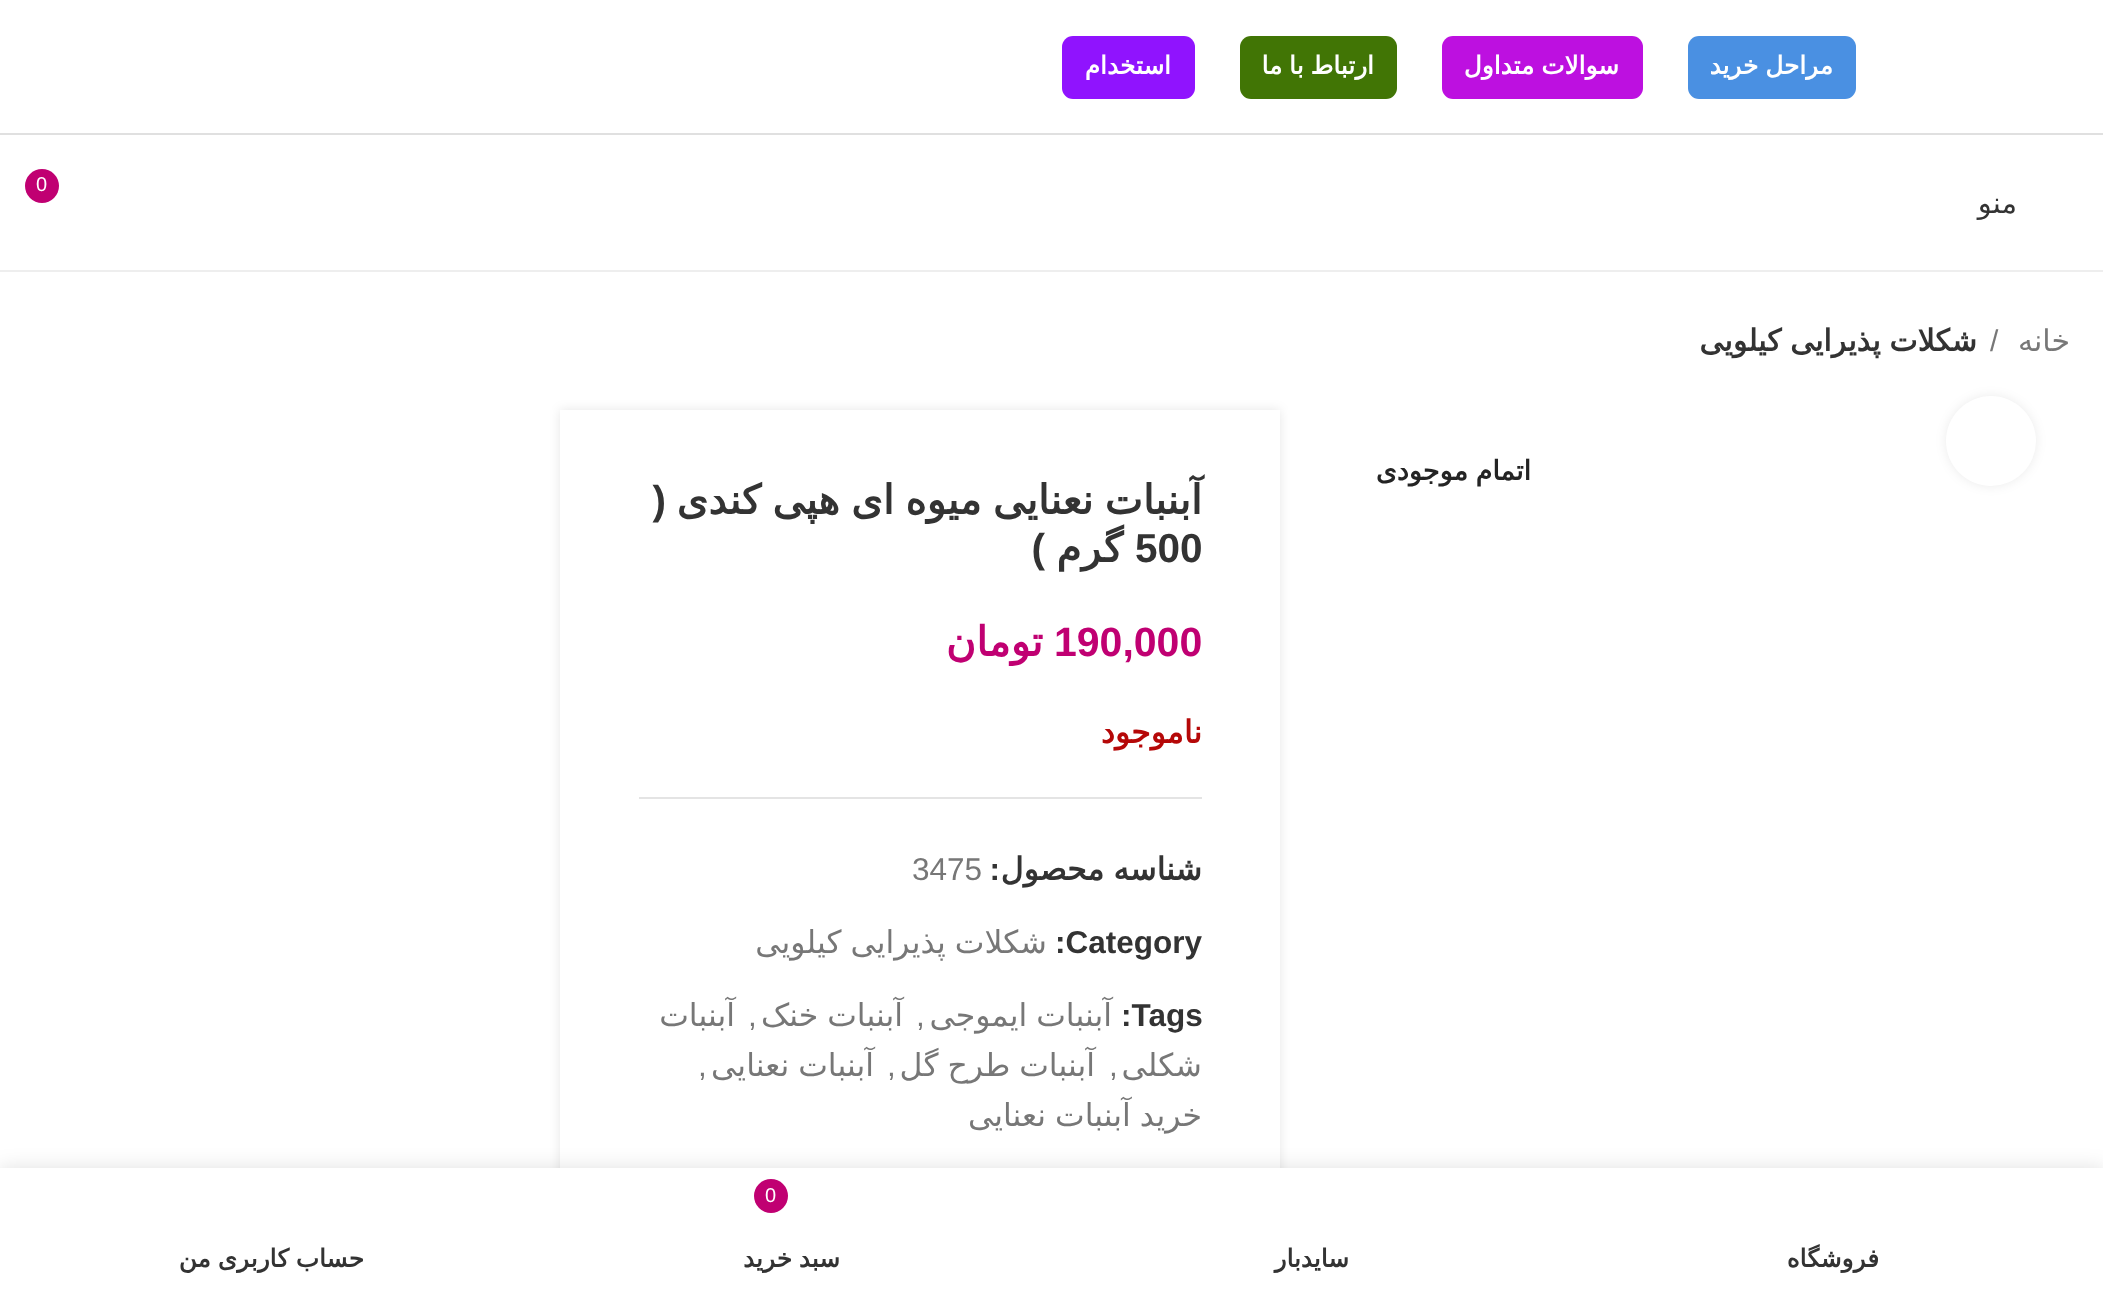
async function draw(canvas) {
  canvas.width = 2103;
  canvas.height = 1291;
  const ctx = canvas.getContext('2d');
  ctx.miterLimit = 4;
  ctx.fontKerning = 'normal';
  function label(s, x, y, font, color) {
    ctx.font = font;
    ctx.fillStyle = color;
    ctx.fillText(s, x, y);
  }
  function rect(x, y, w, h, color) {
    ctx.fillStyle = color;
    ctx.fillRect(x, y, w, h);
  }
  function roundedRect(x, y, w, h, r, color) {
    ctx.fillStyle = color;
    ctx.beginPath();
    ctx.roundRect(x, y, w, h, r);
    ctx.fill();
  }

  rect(0, 0, 2103, 1291, '#fff');
  rect(0, 133, 2103, 2, '#e0e0e0');
  roundedRect(1688, 36, 168, 63, 11, '#4a90e2');
  ctx.wordSpacing = '-1px';
  ctx.direction = 'rtl';
  label('مراحل خرید', 1833, 74, 'bold 24.75px DejaVu Sans', '#fff');
  roundedRect(1442, 36, 201, 63, 11, '#bd10e0');
  label('سوالات متداول', 1619, 74, 'bold 24.75px DejaVu Sans', '#fff');
  roundedRect(1240, 36, 157, 63, 11, '#417505');
  label('ارتباط با ما', 1374, 74, 'bold 24.75px DejaVu Sans', '#fff');
  roundedRect(1062, 36, 133, 63, 11, '#9013fe');
  ctx.wordSpacing = '0px';
  label('استخدام', 1171, 74, 'bold 24.75px DejaVu Sans', '#fff');
  rect(0, 270, 2103, 2, '#eee');
  ctx.fillStyle = '#c00072';
  ctx.beginPath();
  ctx.arc(42, 186, 17, 0, 2 * Math.PI);
  ctx.fill();
  ctx.direction = 'ltr';
  label('0', 36, 191, '20px Liberation Sans', '#fff');
  ctx.direction = 'rtl';
  label('منو', 2017, 213, '29px DejaVu Sans', '#333');
  label('خانه', 2070, 351, '30px DejaVu Sans', '#777');
  ctx.direction = 'ltr';
  label('/', 1990, 351, '30px Liberation Sans', '#777');
  ctx.wordSpacing = '-1px';
  ctx.direction = 'rtl';
  label('شکلات پذیرایی کیلویی', 1977, 351, 'bold 30px DejaVu Sans', '#333');
  ctx.fillStyle = '#00000014';
  ctx.filter = 'blur(5.5px)';
  ctx.beginPath();
  ctx.roundRect(1946, 396, 90, 90, 45);
  ctx.fill();
  ctx.filter = 'none';
  ctx.fillStyle = '#fff';
  ctx.beginPath();
  ctx.arc(1991, 441, 45, 0, 2 * Math.PI);
  ctx.fill();
  label('اتمام موجودی', 1531, 480, 'bold 27px DejaVu Sans', '#242424');
  ctx.fillStyle = '#0000001a';
  ctx.filter = 'blur(5.5px)';
  ctx.beginPath();
  ctx.rect(560, 410, 720, 846);
  ctx.fill();
  ctx.filter = 'none';
  rect(560, 410, 720, 758, '#fff');
  ctx.wordSpacing = '-1.5px';
  label('آبنبات نعنایی میوه ای هپی کندی', 1202, 514, 'bold 40.5px DejaVu Sans', '#333');
  ctx.wordSpacing = '0px';
  label('(', 666, 514, 'bold 40.5px Liberation Sans', '#333');
  ctx.direction = 'ltr';
  label('500', 1135, 562, 'bold 40.5px Liberation Sans', '#333');
  ctx.direction = 'rtl';
  label('گرم', 1123, 562, 'bold 40.5px DejaVu Sans', '#333');
  label(')', 1045, 562, 'bold 40.5px Liberation Sans', '#333');
  ctx.direction = 'ltr';
  label('190,000', 1054, 656, 'bold 41px Liberation Sans', '#c00072');
  ctx.direction = 'rtl';
  label('تومان', 1043, 656, 'bold 41px DejaVu Sans', '#c00072');
  label('ناموجود', 1202, 743, 'bold 31.5px DejaVu Sans', '#b50808');
  rect(639, 797, 563, 2, '#e4e4e4');
  ctx.wordSpacing = '-1px';
  label('شناسه محصول', 1202, 880, 'bold 31.5px DejaVu Sans', '#333');
  ctx.wordSpacing = '0px';
  label(':', 1000, 880, 'bold 31.5px Liberation Sans', '#333');
  ctx.direction = 'ltr';
  label('3475', 912, 880, '31.5px Liberation Sans', '#777');
  label(':Category', 1055, 953, 'bold 31.5px Liberation Sans', '#333');
  ctx.wordSpacing = '-1px';
  ctx.direction = 'rtl';
  label('شکلات پذیرایی کیلویی', 1047, 953, '31.5px DejaVu Sans', '#777');
  ctx.wordSpacing = '0px';
  ctx.direction = 'ltr';
  label(':Tags', 1121, 1026, 'bold 31.5px Liberation Sans', '#333');
  ctx.wordSpacing = '-1px';
  ctx.direction = 'rtl';
  label('آبنبات ایموجی', 1112, 1026, '31.5px DejaVu Sans', '#777');
  ctx.wordSpacing = '0px';
  ctx.direction = 'ltr';
  label(',', 916, 1026, '31.5px Liberation Sans', '#777');
  ctx.wordSpacing = '-1px';
  ctx.direction = 'rtl';
  label('آبنبات خنک', 903, 1026, '31.5px DejaVu Sans', '#777');
  ctx.wordSpacing = '0px';
  ctx.direction = 'ltr';
  label(',', 748, 1026, '31.5px Liberation Sans', '#777');
  ctx.direction = 'rtl';
  label('آبنبات', 735, 1026, '31.5px DejaVu Sans', '#777');
  label('شکلی', 1202, 1076, '31.5px DejaVu Sans', '#777');
  ctx.direction = 'ltr';
  label(',', 1109, 1076, '31.5px Liberation Sans', '#777');
  ctx.wordSpacing = '-1px';
  ctx.direction = 'rtl';
  label('آبنبات طرح گل', 1095, 1076, '31.5px DejaVu Sans', '#777');
  ctx.wordSpacing = '0px';
  ctx.direction = 'ltr';
  label(',', 887, 1076, '31.5px Liberation Sans', '#777');
  ctx.wordSpacing = '-1px';
  ctx.direction = 'rtl';
  label('آبنبات نعنایی', 874, 1076, '31.5px DejaVu Sans', '#777');
  ctx.wordSpacing = '0px';
  ctx.direction = 'ltr';
  label(',', 698, 1076, '31.5px Liberation Sans', '#777');
  ctx.wordSpacing = '-1px';
  ctx.direction = 'rtl';
  label('خرید آبنبات نعنایی', 1202, 1126, '31.5px DejaVu Sans', '#777');
  ctx.fillStyle = '#0000001f';
  ctx.filter = 'blur(10px)';
  ctx.beginPath();
  ctx.rect(0, 1168, 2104, 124);
  ctx.fill();
  ctx.filter = 'none';
  rect(0, 1168, 2103, 123, '#fff');
  ctx.wordSpacing = '0px';
  label('فروشگاه', 1879, 1267, 'bold 24.75px DejaVu Sans', '#333');
  label('سایدبار', 1349, 1267, 'bold 24.75px DejaVu Sans', '#333');
  ctx.fillStyle = '#c00072';
  ctx.beginPath();
  ctx.arc(771, 1196, 17, 0, 2 * Math.PI);
  ctx.fill();
  ctx.direction = 'ltr';
  label('0', 765, 1202, '20px Liberation Sans', '#fff');
  ctx.wordSpacing = '-1px';
  ctx.direction = 'rtl';
  label('سبد خرید', 840, 1267, 'bold 24.75px DejaVu Sans', '#333');
  label('حساب کاربری من', 364, 1267, 'bold 24.75px DejaVu Sans', '#333');
}

draw(document.querySelector('canvas'));
